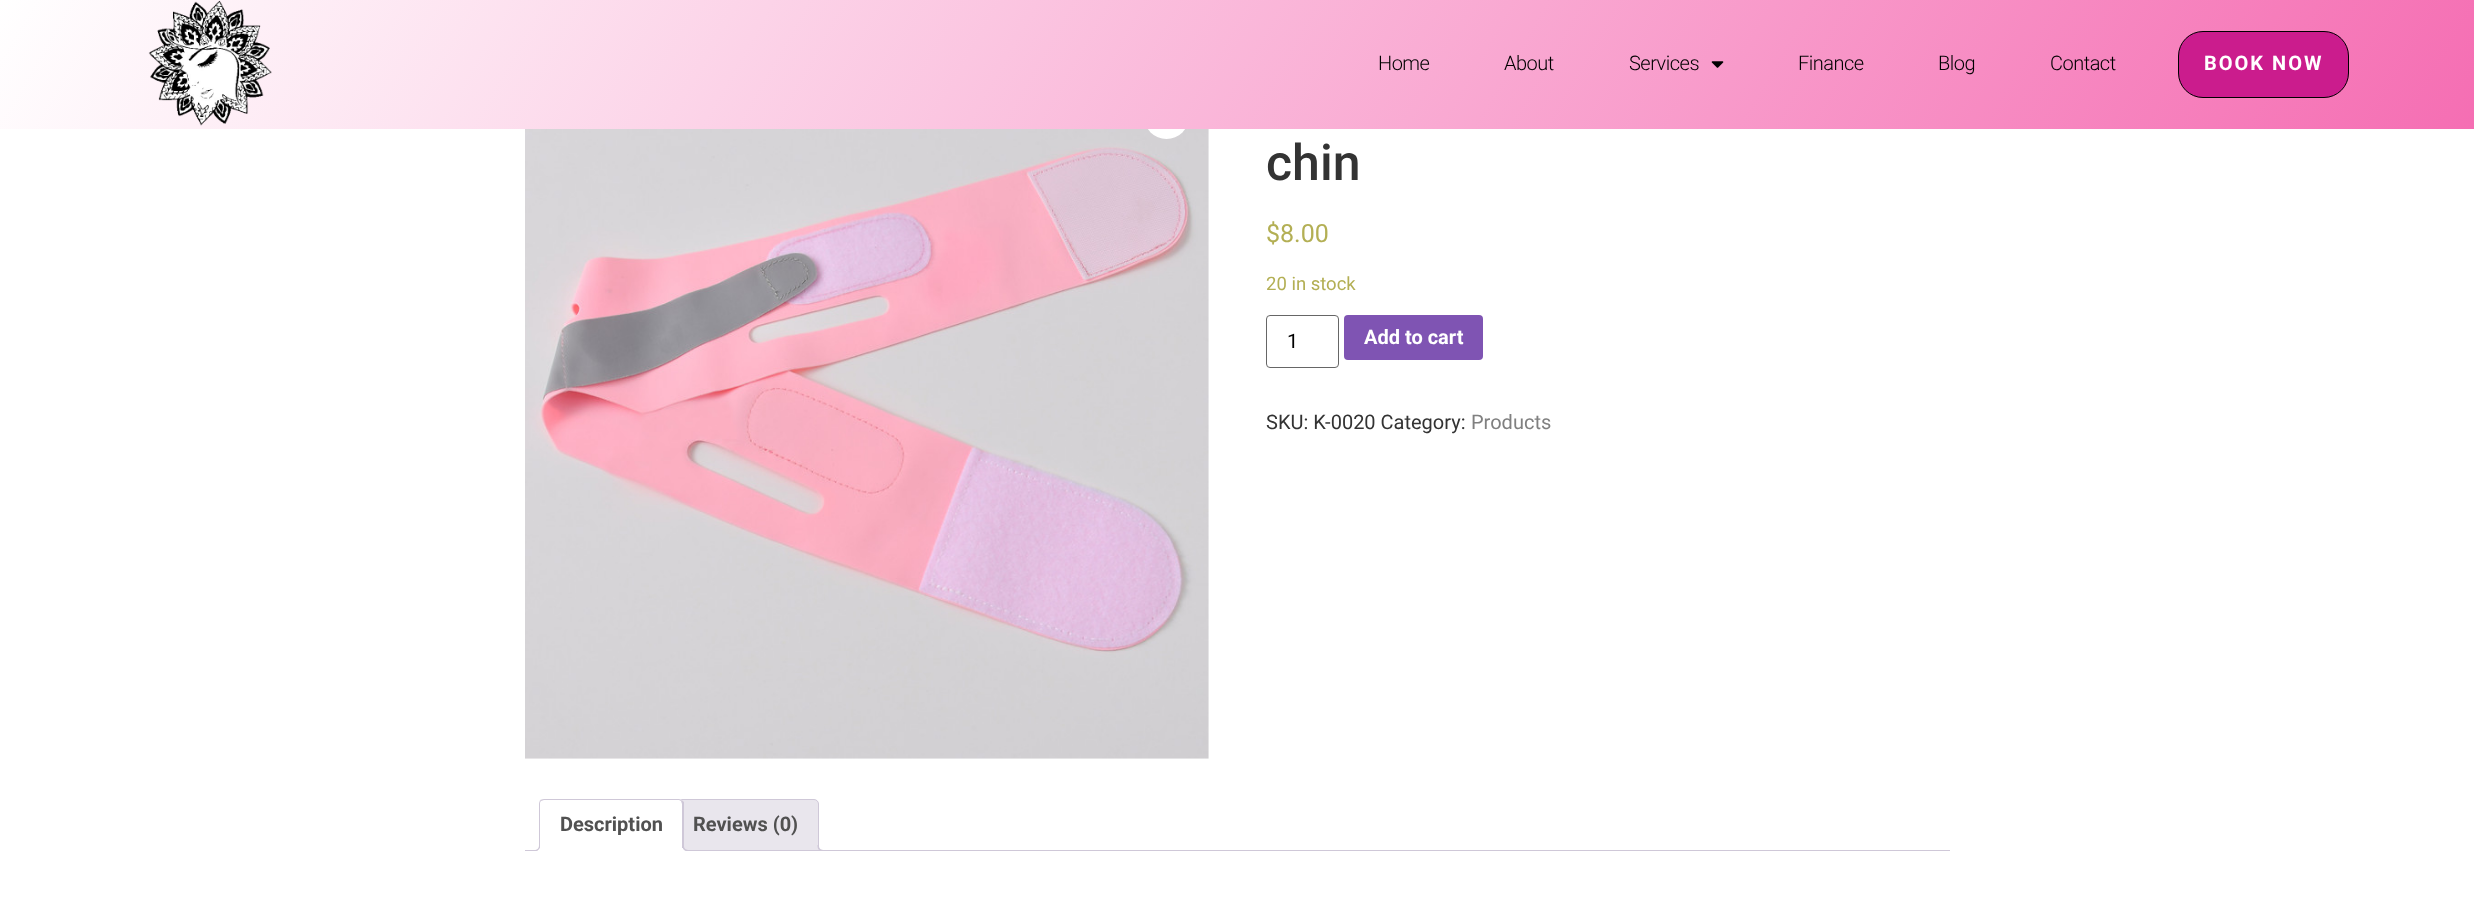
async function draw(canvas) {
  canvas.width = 2474;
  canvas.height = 905;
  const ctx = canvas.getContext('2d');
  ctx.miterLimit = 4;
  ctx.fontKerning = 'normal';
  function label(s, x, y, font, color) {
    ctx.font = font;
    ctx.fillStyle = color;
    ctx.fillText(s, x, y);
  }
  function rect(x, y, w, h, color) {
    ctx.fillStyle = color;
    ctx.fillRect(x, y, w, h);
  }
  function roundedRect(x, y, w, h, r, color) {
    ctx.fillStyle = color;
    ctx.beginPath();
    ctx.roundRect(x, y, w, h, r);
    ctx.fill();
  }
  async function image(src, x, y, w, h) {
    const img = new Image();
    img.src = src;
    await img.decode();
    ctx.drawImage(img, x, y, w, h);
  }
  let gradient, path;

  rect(0, 0, 2474, 905, '#fff');
  await image('assets/img3.png', 525, 129, 684, 630);
  ctx.beginPath();
  ctx.arc(1166.5, 116.5, 22.5, 0, 2 * Math.PI);
  ctx.fill();
  gradient = ctx.createLinearGradient(281, -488, 2194, 616);
  gradient.addColorStop(0, '#fff');
  gradient.addColorStop(1, '#f56eb3');
  ctx.fillStyle = gradient;
  ctx.fillRect(0, 0, 2474, 129);
  await image('assets/img1.png', 148, 0, 124, 126);
  ctx.letterSpacing = '-0.5px';
  label('Home', 1378, 70, '300 20px Roboto', '#000');
  label('About', 1504, 70, '300 20px Roboto', '#000');
  label('Services', 1629, 70, '300 20px Roboto', '#000');
  await image('assets/img2.png', 1711, 61, 13, 7);
  label('Finance', 1798, 70, '300 20px Roboto', '#000');
  label('Blog', 1938, 70, '300 20px Roboto', '#000');
  label('Contact', 2050, 70, '300 20px Roboto', '#000');
  ctx.fillStyle = '#cb1c8d';
  ctx.beginPath();
  ctx.roundRect(2178.5, 31.5, 170, 66, 24.5);
  ctx.fill();
  ctx.strokeStyle = '#000';
  ctx.stroke();
  ctx.letterSpacing = '2px';
  label('BOOK NOW', 2204, 70, 'bold 20px Roboto', '#fff');
  ctx.letterSpacing = '0px';
  label('chin', 1266, 180, '500 50px Roboto', '#333');
  label('$8.00', 1266, 242, '25px Roboto', '#b3af54');
  label('20 in stock', 1266, 290, '18.5px Roboto', '#b3af54');
  ctx.beginPath();
  ctx.roundRect(1266.5, 315.5, 72, 52, 3.5);
  ctx.strokeStyle = '#666';
  ctx.stroke();
  label('1', 1287, 348, '20px Roboto', '#000');
  roundedRect(1344, 315, 139, 45, 4, '#7f54b3');
  label('Add to cart', 1364, 344, 'bold 20px Roboto', '#fff');
  label('SKU: K-0020 Category:', 1266, 429, '20px Roboto', '#333');
  label('Products', 1471, 429, '20px Roboto', '#808080');
  ctx.fillStyle = '#e9e6ed';
  ctx.beginPath();
  ctx.roundRect(671.5, 799.5, 147, 51, [4.5, 4.5, 0, 0]);
  ctx.fill();
  ctx.strokeStyle = '#cfc8d8';
  ctx.stroke();
  ctx.save();
  ctx.beginPath();
  ctx.rect(525, 799, 1425, 52);
  ctx.clip();
  path = new Path2D('M815 848C815 852 817 854 821 854V851C819.5 850.5 818.5 849.5 818 848Z');
  ctx.fill(path);
  ctx.restore();
  ctx.fillStyle = '#cfc8d8';
  path = new Path2D('M817.5 845H824V851C820.5 851 817.5 850 817.5 846ZM819 845H824V850C821.5 850 819 849 819 846Z');
  ctx.fill(path, 'evenodd');
  rect(525, 850, 1425, 1, '#cfc8d8');
  ctx.fillStyle = '#fff';
  ctx.beginPath();
  ctx.roundRect(539, 799, 145, 52, [5, 5, 0, 0]);
  ctx.fill();
  ctx.fillStyle = '#cfc8d8';
  path = new Path2D('M544 799C542 799 541 800 540 800L541 801L544 800H679L681 801L682 800L679 799Z');
  ctx.fill(path);
  path = new Path2D('M682 800L684 802V851L682 850V804L681 801Z');
  ctx.fill(path);
  ctx.fillStyle = '#fff';
  path = new Path2D('M684 851H539L540 850H682Z');
  ctx.fill(path);
  ctx.fillStyle = '#cfc8d8';
  path = new Path2D('M540 800C540 801 539 802 539 804V851L540 850V804C540 803 540 802 541 801Z');
  ctx.fill(path);
  label('Description', 560, 831, 'bold 20px Roboto', '#515151');
  ctx.save();
  ctx.beginPath();
  ctx.rect(525, 799, 1425, 52);
  ctx.clip();
  ctx.fillStyle = '#fff';
  path = new Path2D('M536 851V854C540.5 854 543 853 543 848H539.5C539 849.5 537.5 851 536 851Z');
  ctx.fill(path);
  ctx.restore();
  ctx.fillStyle = '#cfc8d8';
  path = new Path2D('M534 845H540C540 849.5 538 851 534 851ZM534 845H539C539 848.5 537.5 850 534 850Z');
  ctx.fill(path, 'evenodd');
  ctx.save();
  ctx.beginPath();
  ctx.rect(525, 799, 1425, 52);
  ctx.clip();
  ctx.fillStyle = '#fff';
  path = new Path2D('M680 848C680 852 682 854 686 854V851C684.5 850.5 683.5 849.5 683 848Z');
  ctx.fill(path);
  ctx.restore();
  path = new Path2D('M682.5 845H689V851C685.5 851 682.5 850 682.5 846ZM684 845H689V850C686.5 850 684 849 684 846Z');
  ctx.fill(path, 'evenodd');
  label('Reviews (0)', 693, 831, 'bold 20px Roboto', '#515151');
}

draw(document.querySelector('canvas'));
